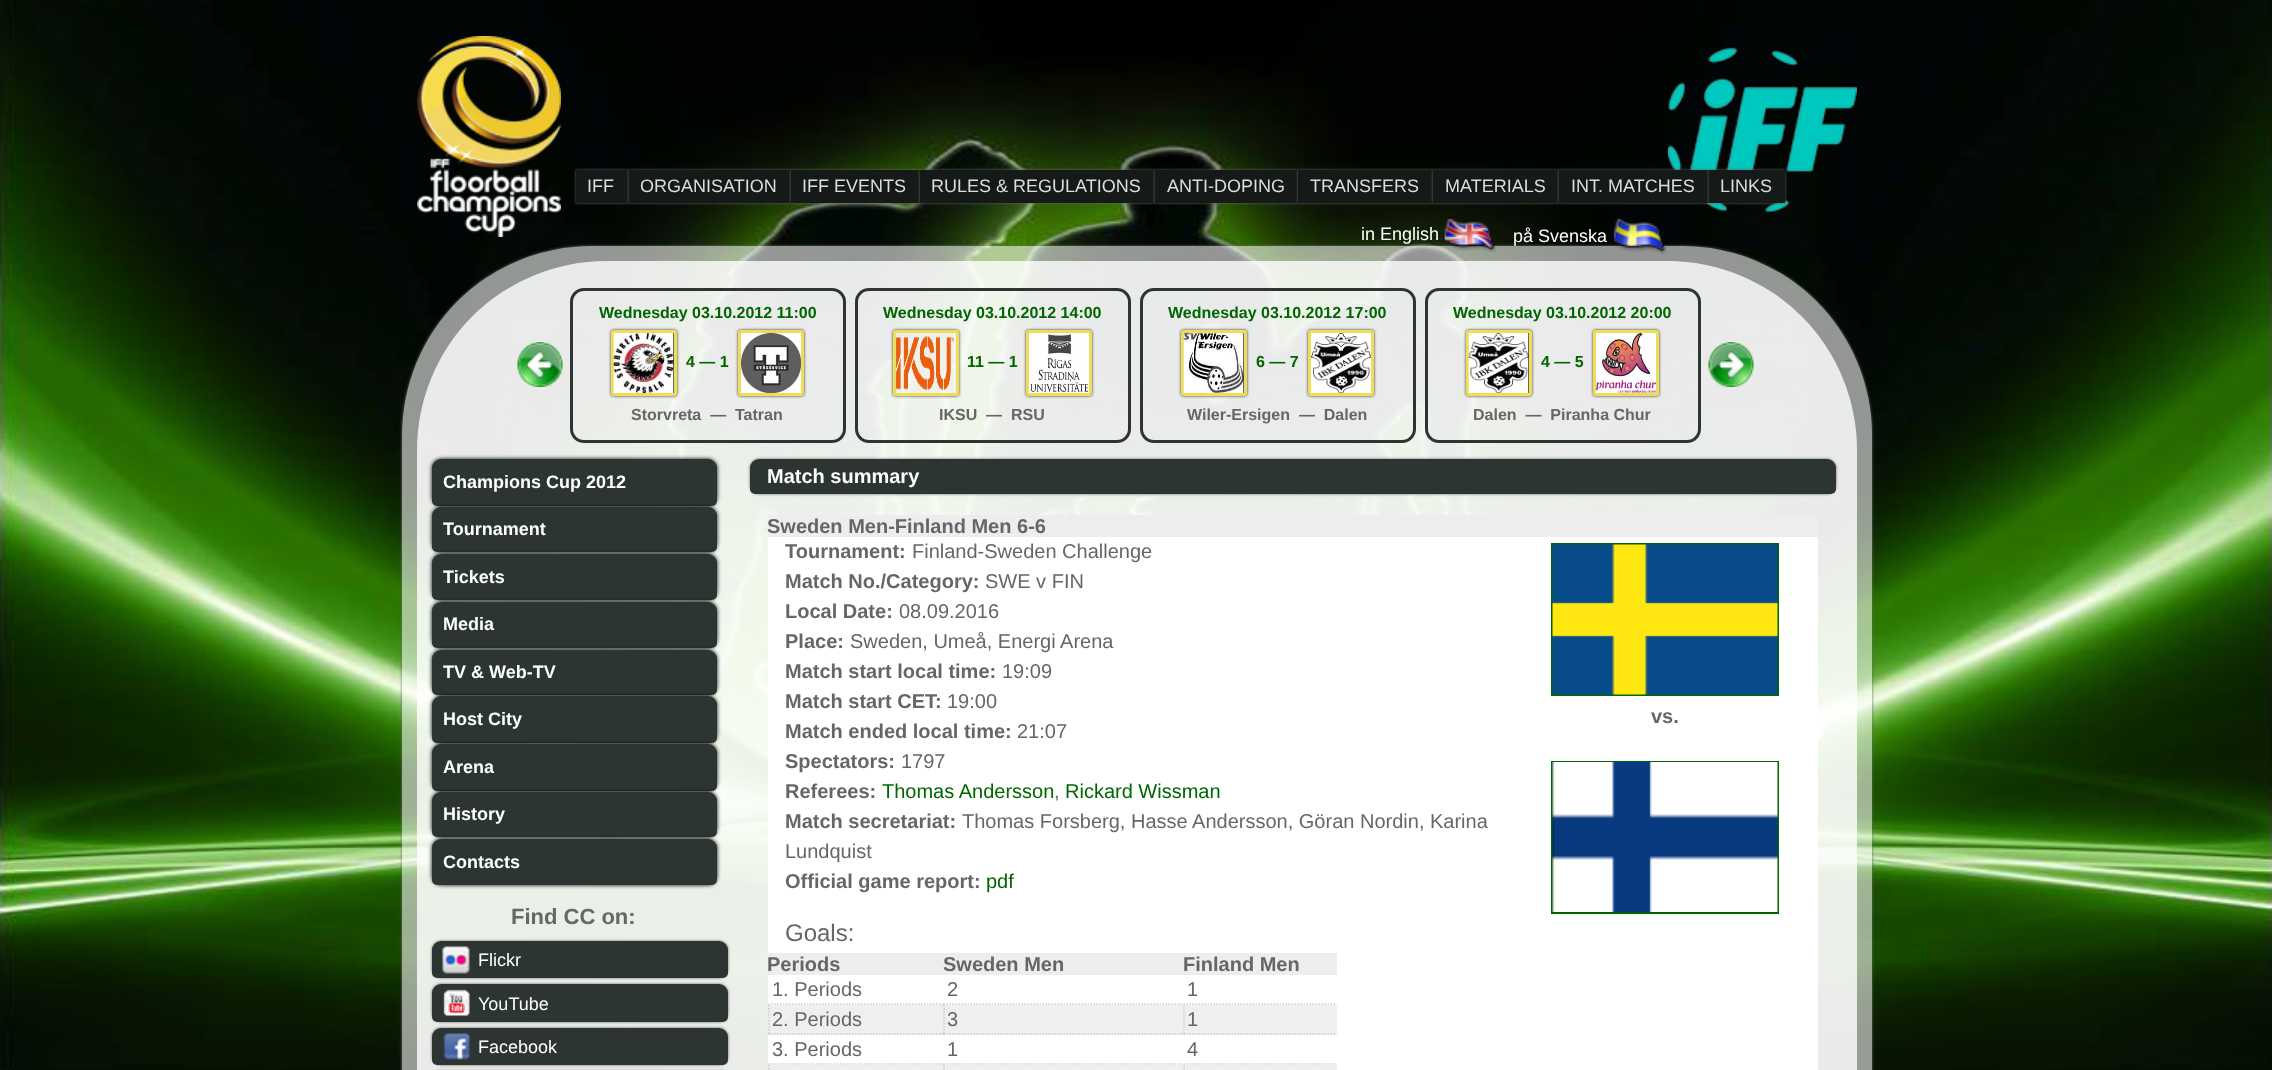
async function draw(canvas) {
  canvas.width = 2272;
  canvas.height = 1070;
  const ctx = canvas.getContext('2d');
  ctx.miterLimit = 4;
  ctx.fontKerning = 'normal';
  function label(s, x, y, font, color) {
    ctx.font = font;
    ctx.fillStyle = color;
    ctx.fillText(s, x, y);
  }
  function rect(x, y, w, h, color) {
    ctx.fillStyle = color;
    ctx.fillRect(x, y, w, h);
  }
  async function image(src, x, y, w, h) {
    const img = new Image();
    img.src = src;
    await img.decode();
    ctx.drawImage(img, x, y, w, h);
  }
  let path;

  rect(0, 0, 2272, 1070, '#fff');
  await image('assets/img1.png', 0, 0, 2272, 1070);
  await image('assets/img2.png', 417, 36, 144, 201);
  await image('assets/img3.png', 1668, 47, 189, 165);
  ctx.fillStyle = '#666';
  ctx.filter = 'blur(1.5px)';
  ctx.beginPath();
  ctx.rect(576, 170, 53, 33);
  ctx.fill();
  ctx.filter = 'none';
  rect(576, 170, 53, 33, '#151a18');
  label('IFF', 587, 192, '18px Liberation Sans', '#ddd');
  ctx.fillStyle = '#666';
  ctx.filter = 'blur(1.5px)';
  ctx.beginPath();
  ctx.rect(629, 170, 162, 33);
  ctx.fill();
  ctx.filter = 'none';
  rect(629, 170, 162, 33, '#151a18');
  label('ORGANISATION', 640, 192, '18px Liberation Sans', '#ddd');
  ctx.fillStyle = '#666';
  ctx.filter = 'blur(1.5px)';
  ctx.beginPath();
  ctx.rect(791, 170, 129, 33);
  ctx.fill();
  ctx.filter = 'none';
  rect(791, 170, 129, 33, '#151a18');
  label('IFF EVENTS', 802, 192, '18px Liberation Sans', '#ddd');
  ctx.fillStyle = '#666';
  ctx.filter = 'blur(1.5px)';
  ctx.beginPath();
  ctx.rect(920, 170, 235, 33);
  ctx.fill();
  ctx.filter = 'none';
  rect(920, 170, 235, 33, '#151a18');
  label('RULES & REGULATIONS', 931, 192, '18px Liberation Sans', '#ddd');
  ctx.fillStyle = '#666';
  ctx.filter = 'blur(1.5px)';
  ctx.beginPath();
  ctx.rect(1155, 170, 143, 33);
  ctx.fill();
  ctx.filter = 'none';
  rect(1155, 170, 143, 33, '#151a18');
  label('ANTI-DOPING', 1167, 192, '18px Liberation Sans', '#ddd');
  ctx.fillStyle = '#666';
  ctx.filter = 'blur(1.5px)';
  ctx.beginPath();
  ctx.rect(1298, 170, 135, 33);
  ctx.fill();
  ctx.filter = 'none';
  rect(1298, 170, 135, 33, '#151a18');
  label('TRANSFERS', 1310, 192, '18px Liberation Sans', '#ddd');
  ctx.fillStyle = '#666';
  ctx.filter = 'blur(1.5px)';
  ctx.beginPath();
  ctx.rect(1433, 170, 126, 33);
  ctx.fill();
  ctx.filter = 'none';
  rect(1433, 170, 126, 33, '#151a18');
  label('MATERIALS', 1445, 192, '18px Liberation Sans', '#ddd');
  ctx.fillStyle = '#666';
  ctx.filter = 'blur(1.5px)';
  ctx.beginPath();
  ctx.rect(1559, 170, 150, 33);
  ctx.fill();
  ctx.filter = 'none';
  rect(1559, 170, 150, 33, '#151a18');
  label('INT. MATCHES', 1571, 192, '18px Liberation Sans', '#ddd');
  ctx.fillStyle = '#666';
  ctx.filter = 'blur(1.5px)';
  ctx.beginPath();
  ctx.rect(1709, 170, 76, 33);
  ctx.fill();
  ctx.filter = 'none';
  rect(1709, 170, 76, 33, '#151a18');
  label('LINKS', 1720, 192, '18px Liberation Sans', '#ddd');
  ctx.save();
  path = new Path2D('M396 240H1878V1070H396ZM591 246H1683C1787.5 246 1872 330.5 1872 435V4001C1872 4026 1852 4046 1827 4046H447C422 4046 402 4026 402 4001V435C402 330.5 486.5 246 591 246Z');
  ctx.clip(path, 'evenodd');
  ctx.fillStyle = '#666';
  ctx.filter = 'blur(1.5px)';
  ctx.beginPath();
  ctx.roundRect(402, 246, 1470, 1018, 189);
  ctx.fill();
  ctx.filter = 'none';
  ctx.restore();
  label('in English', 1361, 240, '18px Liberation Sans', '#fff');
  await image('assets/img6.png', 402, 246, 1470, 824);
  await image('assets/img4.png', 1443, 217, 53, 36);
  label('på Svenska', 1513, 242, '18px Liberation Sans', '#fff');
  await image('assets/img5.png', 1613, 218, 54, 37);
  await image('assets/img7.png', 417, 261, 1440, 809);
  await image('assets/img8.png', 517, 342, 46, 45);
  ctx.beginPath();
  ctx.roundRect(571.5, 289.5, 273, 152, 12.5);
  ctx.strokeStyle = '#2d3532';
  ctx.lineWidth = 3;
  ctx.stroke();
  label('Wednesday 03.10.2012 11:00', 599, 318, 'bold 16px Liberation Sans', '#060');
  ctx.fillStyle = '#333';
  ctx.filter = 'blur(1.5px)';
  ctx.beginPath();
  ctx.roundRect(611, 330, 66, 66, 3);
  ctx.fill();
  ctx.filter = 'none';
  ctx.filter = 'blur(1.5px)';
  ctx.beginPath();
  ctx.roundRect(738, 330, 66, 66, 3);
  ctx.fill();
  ctx.filter = 'none';
  ctx.beginPath();
  ctx.roundRect(612.5, 331.5, 63, 63, 1.5);
  ctx.strokeStyle = '#eede57';
  ctx.stroke();
  ctx.beginPath();
  ctx.roundRect(739.5, 331.5, 63, 63, 1.5);
  ctx.stroke();
  await image('assets/img9.png', 613, 333, 61, 60);
  label('4 — 1', 686, 367, 'bold 16px Liberation Sans', '#060');
  await image('assets/img10.png', 741, 333, 60, 60);
  label('Storvreta  —  Tatran', 631, 420, 'bold 16px Liberation Sans', '#666');
  ctx.beginPath();
  ctx.roundRect(856.5, 289.5, 273, 152, 12.5);
  ctx.strokeStyle = '#2d3532';
  ctx.stroke();
  label('Wednesday 03.10.2012 14:00', 883, 318, 'bold 16px Liberation Sans', '#060');
  ctx.save();
  path = new Path2D('M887 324H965V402H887ZM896 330H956C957.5 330 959 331.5 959 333V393C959 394.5 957.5 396 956 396H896C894.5 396 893 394.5 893 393V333C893 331.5 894.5 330 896 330Z');
  ctx.clip(path, 'evenodd');
  ctx.fillStyle = '#333';
  ctx.filter = 'blur(1.5px)';
  ctx.beginPath();
  ctx.roundRect(893, 330, 66, 66, 3);
  ctx.fill();
  ctx.filter = 'none';
  ctx.restore();
  ctx.fillStyle = '#333';
  ctx.filter = 'blur(1.5px)';
  ctx.beginPath();
  ctx.roundRect(1026, 330, 66, 66, 3);
  ctx.fill();
  ctx.filter = 'none';
  ctx.beginPath();
  ctx.roundRect(894.5, 331.5, 63, 63, 1.5);
  ctx.strokeStyle = '#eede57';
  ctx.stroke();
  ctx.beginPath();
  ctx.roundRect(1027.5, 331.5, 63, 63, 1.5);
  ctx.stroke();
  await image('assets/img11.png', 896, 336, 58, 54);
  label('11 — 1', 967, 367, 'bold 16px Liberation Sans', '#060');
  await image('assets/img12.png', 1029, 333, 60, 60);
  label('IKSU  —  RSU', 939, 420, 'bold 16px Liberation Sans', '#666');
  ctx.beginPath();
  ctx.roundRect(1141.5, 289.5, 273, 152, 12.5);
  ctx.strokeStyle = '#2d3532';
  ctx.stroke();
  label('Wednesday 03.10.2012 17:00', 1168, 318, 'bold 16px Liberation Sans', '#060');
  ctx.fillStyle = '#333';
  ctx.filter = 'blur(1.5px)';
  ctx.beginPath();
  ctx.roundRect(1181, 330, 66, 66, 3);
  ctx.fill();
  ctx.filter = 'none';
  ctx.filter = 'blur(1.5px)';
  ctx.beginPath();
  ctx.roundRect(1308, 330, 66, 66, 3);
  ctx.fill();
  ctx.filter = 'none';
  ctx.beginPath();
  ctx.roundRect(1182.5, 331.5, 63, 63, 1.5);
  ctx.strokeStyle = '#eede57';
  ctx.stroke();
  ctx.beginPath();
  ctx.roundRect(1309.5, 331.5, 63, 63, 1.5);
  ctx.stroke();
  await image('assets/img13.png', 1183, 333, 61, 60);
  label('6 — 7', 1256, 367, 'bold 16px Liberation Sans', '#060');
  await image('assets/img14.png', 1311, 333, 60, 60);
  label('Wiler-Ersigen  —  Dalen', 1187, 420, 'bold 16px Liberation Sans', '#666');
  ctx.beginPath();
  ctx.roundRect(1426.5, 289.5, 273, 152, 12.5);
  ctx.strokeStyle = '#2d3532';
  ctx.stroke();
  label('Wednesday 03.10.2012 20:00', 1453, 318, 'bold 16px Liberation Sans', '#060');
  ctx.fillStyle = '#333';
  ctx.filter = 'blur(1.5px)';
  ctx.beginPath();
  ctx.roundRect(1466, 330, 66, 66, 3);
  ctx.fill();
  ctx.filter = 'none';
  ctx.filter = 'blur(1.5px)';
  ctx.beginPath();
  ctx.roundRect(1593, 330, 66, 66, 3);
  ctx.fill();
  ctx.filter = 'none';
  ctx.beginPath();
  ctx.roundRect(1467.5, 331.5, 63, 63, 1.5);
  ctx.strokeStyle = '#eede57';
  ctx.stroke();
  ctx.beginPath();
  ctx.roundRect(1594.5, 331.5, 63, 63, 1.5);
  ctx.stroke();
  await image('assets/img15.png', 1468, 333, 61, 60);
  label('4 — 5', 1541, 367, 'bold 16px Liberation Sans', '#060');
  await image('assets/img16.png', 1596, 333, 60, 60);
  label('Dalen  —  Piranha Chur', 1473, 420, 'bold 16px Liberation Sans', '#666');
  await image('assets/img17.png', 1708, 342, 46, 45);
  ctx.fillStyle = '#000';
  ctx.filter = 'blur(2px)';
  ctx.beginPath();
  ctx.roundRect(432, 459, 285, 47, 9);
  ctx.fill();
  ctx.filter = 'none';
  ctx.fillStyle = '#2d3532';
  ctx.beginPath();
  ctx.roundRect(432, 459, 285, 47, [9, 9, 5, 5]);
  ctx.fill();
  label('Champions Cup 2012', 443, 488, 'bold 18px Liberation Sans', '#fff');
  ctx.fillStyle = '#000';
  ctx.filter = 'blur(2px)';
  ctx.beginPath();
  ctx.roundRect(432, 507, 285, 45, 9);
  ctx.fill();
  ctx.filter = 'none';
  ctx.fillStyle = '#2d3532';
  ctx.beginPath();
  ctx.roundRect(432, 507, 285, 45, [9, 9, 5, 5]);
  ctx.fill();
  label('Tournament', 443, 535, 'bold 18px Liberation Sans', '#fff');
  ctx.fillStyle = '#000';
  ctx.filter = 'blur(2px)';
  ctx.beginPath();
  ctx.roundRect(432, 554, 285, 46, 9);
  ctx.fill();
  ctx.filter = 'none';
  ctx.fillStyle = '#2d3532';
  ctx.beginPath();
  ctx.roundRect(432, 554, 285, 46, [9, 9, 5, 5]);
  ctx.fill();
  label('Tickets', 443, 583, 'bold 18px Liberation Sans', '#fff');
  ctx.fillStyle = '#000';
  ctx.filter = 'blur(2px)';
  ctx.beginPath();
  ctx.roundRect(432, 602, 285, 46, 9);
  ctx.fill();
  ctx.filter = 'none';
  ctx.fillStyle = '#2d3532';
  ctx.beginPath();
  ctx.roundRect(432, 602, 285, 46, [9, 9, 5, 5]);
  ctx.fill();
  label('Media', 443, 630, 'bold 18px Liberation Sans', '#fff');
  ctx.fillStyle = '#000';
  ctx.filter = 'blur(2px)';
  ctx.beginPath();
  ctx.roundRect(432, 650, 285, 45, 9);
  ctx.fill();
  ctx.filter = 'none';
  ctx.fillStyle = '#2d3532';
  ctx.beginPath();
  ctx.roundRect(432, 650, 285, 45, [9, 9, 5, 5]);
  ctx.fill();
  label('TV & Web-TV', 443, 678, 'bold 18px Liberation Sans', '#fff');
  ctx.fillStyle = '#000';
  ctx.filter = 'blur(2px)';
  ctx.beginPath();
  ctx.roundRect(432, 696, 285, 47, 9);
  ctx.fill();
  ctx.filter = 'none';
  ctx.fillStyle = '#2d3532';
  ctx.beginPath();
  ctx.roundRect(432, 696, 285, 47, [9, 9, 5, 5]);
  ctx.fill();
  label('Host City', 443, 725, 'bold 18px Liberation Sans', '#fff');
  ctx.fillStyle = '#000';
  ctx.filter = 'blur(2px)';
  ctx.beginPath();
  ctx.roundRect(432, 744, 285, 47, 9);
  ctx.fill();
  ctx.filter = 'none';
  ctx.fillStyle = '#2d3532';
  ctx.beginPath();
  ctx.roundRect(432, 744, 285, 47, [9, 9, 5, 5]);
  ctx.fill();
  label('Arena', 443, 773, 'bold 18px Liberation Sans', '#fff');
  ctx.fillStyle = '#000';
  ctx.filter = 'blur(2px)';
  ctx.beginPath();
  ctx.roundRect(432, 792, 285, 45, 9);
  ctx.fill();
  ctx.filter = 'none';
  ctx.fillStyle = '#2d3532';
  ctx.beginPath();
  ctx.roundRect(432, 792, 285, 45, [9, 9, 5, 5]);
  ctx.fill();
  label('History', 443, 820, 'bold 18px Liberation Sans', '#fff');
  ctx.fillStyle = '#000';
  ctx.filter = 'blur(2px)';
  ctx.beginPath();
  ctx.roundRect(432, 839, 285, 46, 9);
  ctx.fill();
  ctx.filter = 'none';
  ctx.fillStyle = '#2d3532';
  ctx.beginPath();
  ctx.roundRect(432, 839, 285, 46, [9, 9, 5, 5]);
  ctx.fill();
  label('Contacts', 443, 868, 'bold 18px Liberation Sans', '#fff');
  label('Find CC on:', 511, 924, 'bold 22px Liberation Sans', '#666');
  ctx.filter = 'blur(1.5px)';
  ctx.beginPath();
  ctx.roundRect(432, 941, 296, 37, 9);
  ctx.fill();
  ctx.filter = 'none';
  ctx.fillStyle = '#2d3532';
  ctx.beginPath();
  ctx.roundRect(432, 941, 296, 37, [9, 9, 5, 5]);
  ctx.fill();
  await image('assets/img18.png', 442, 946, 28, 28);
  label('Flickr', 478, 966, '18px Liberation Sans', '#fff');
  ctx.fillStyle = '#666';
  ctx.filter = 'blur(1.5px)';
  ctx.beginPath();
  ctx.roundRect(432, 984, 296, 38, 9);
  ctx.fill();
  ctx.filter = 'none';
  ctx.fillStyle = '#2d3532';
  ctx.beginPath();
  ctx.roundRect(432, 984, 296, 38, [9, 9, 5, 5]);
  ctx.fill();
  await image('assets/img19.png', 443, 989, 27, 27);
  label('YouTube', 478, 1010, '18px Liberation Sans', '#fff');
  ctx.fillStyle = '#666';
  ctx.filter = 'blur(1.5px)';
  ctx.beginPath();
  ctx.roundRect(432, 1028, 296, 37, 9);
  ctx.fill();
  ctx.filter = 'none';
  ctx.fillStyle = '#2d3532';
  ctx.beginPath();
  ctx.roundRect(432, 1028, 296, 37, [9, 9, 5, 5]);
  ctx.fill();
  await image('assets/img20.png', 443, 1033, 27, 27);
  label('Facebook', 478, 1053, '18px Liberation Sans', '#fff');
  ctx.fillStyle = '#666';
  ctx.filter = 'blur(1.5px)';
  ctx.beginPath();
  ctx.roundRect(432, 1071, 296, 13, 9);
  ctx.fill();
  ctx.filter = 'none';
  ctx.filter = 'blur(1.5px)';
  ctx.beginPath();
  ctx.roundRect(750, 459, 1086, 35, 9);
  ctx.fill();
  ctx.filter = 'none';
  ctx.fillStyle = '#2d3532';
  ctx.beginPath();
  ctx.roundRect(750, 459, 1086, 35, [9, 9, 5, 5]);
  ctx.fill();
  label('Match summary', 767, 483, 'bold 20px Liberation Sans', '#fff');
  rect(768, 515, 1050, 22, '#ededed');
  label('Sweden Men-Finland Men 6-6', 767, 533, 'bold 20px Liberation Sans', '#666');
  rect(768, 537, 1050, 533, '#fff');
  label('Tournament:', 785, 558, 'bold 20px Liberation Sans', '#666');
  label('Finland-Sweden Challenge', 912, 558, '20px Liberation Sans', '#666');
  label('Match No./Category:', 785, 588, 'bold 20px Liberation Sans', '#666');
  label('SWE v FIN', 985, 588, '20px Liberation Sans', '#666');
  label('Local Date:', 785, 618, 'bold 20px Liberation Sans', '#666');
  label('08.09.2016', 899, 618, '20px Liberation Sans', '#666');
  label('Place:', 785, 648, 'bold 20px Liberation Sans', '#666');
  label('Sweden, Umeå, Energi Arena', 850, 648, '20px Liberation Sans', '#666');
  label('Match start local time:', 785, 678, 'bold 20px Liberation Sans', '#666');
  label('19:09', 1002, 678, '20px Liberation Sans', '#666');
  label('Match start CET:', 785, 708, 'bold 20px Liberation Sans', '#666');
  label('19:00', 947, 708, '20px Liberation Sans', '#666');
  label('Match ended local time:', 785, 738, 'bold 20px Liberation Sans', '#666');
  label('21:07', 1017, 738, '20px Liberation Sans', '#666');
  label('Spectators:', 785, 768, 'bold 20px Liberation Sans', '#666');
  label('1797', 901, 768, '20px Liberation Sans', '#666');
  label('Referees:', 785, 798, 'bold 20px Liberation Sans', '#666');
  label('Thomas Andersson', 882, 798, '20px Liberation Sans', '#060');
  label(',', 1054, 798, '20px Liberation Sans', '#666');
  label('Rickard Wissman', 1065, 798, '20px Liberation Sans', '#060');
  label('Match secretariat:', 785, 828, 'bold 20px Liberation Sans', '#666');
  label('Thomas Forsberg, Hasse Andersson, Göran Nordin, Karina', 962, 828, '20px Liberation Sans', '#666');
  label('Lundquist', 785, 858, '20px Liberation Sans', '#666');
  label('Official game report:', 785, 888, 'bold 20px Liberation Sans', '#666');
  label('pdf', 986, 888, '20px Liberation Sans', '#060');
  label('Goals:', 785, 941, '24px Liberation Sans', '#666');
  rect(768, 953, 569, 22, '#ededed');
  label('Periods', 767, 971, 'bold 20px Liberation Sans', '#666');
  label('Sweden Men', 943, 971, 'bold 20px Liberation Sans', '#666');
  label('Finland Men', 1183, 971, 'bold 20px Liberation Sans', '#666');
  path = new Path2D('M768 1004H943.5');
  ctx.strokeStyle = '#ccc';
  ctx.lineWidth = 1.5;
  ctx.setLineDash([1.5, 1.5]);
  ctx.stroke(path);
  path = new Path2D('M769 975V1005');
  ctx.strokeStyle = '#fff';
  ctx.stroke(path);
  label('1. Periods', 772, 996, '20px Liberation Sans', '#666');
  path = new Path2D('M943.5 1004H1183.5');
  ctx.strokeStyle = '#ccc';
  ctx.stroke(path);
  path = new Path2D('M944 975V1005');
  ctx.strokeStyle = '#fff';
  ctx.stroke(path);
  label('2', 947, 996, '20px Liberation Sans', '#666');
  path = new Path2D('M1183.5 1004H1336.5');
  ctx.strokeStyle = '#ccc';
  ctx.stroke(path);
  path = new Path2D('M1184 975V1005');
  ctx.strokeStyle = '#fff';
  ctx.stroke(path);
  label('1', 1187, 996, '20px Liberation Sans', '#666');
  rect(768, 1005, 569, 30, '#efefef');
  path = new Path2D('M768 1034H943.5');
  ctx.strokeStyle = '#ccc';
  ctx.stroke(path);
  path = new Path2D('M769 1005V1035');
  ctx.stroke(path);
  label('2. Periods', 772, 1026, '20px Liberation Sans', '#666');
  path = new Path2D('M943.5 1034H1183.5');
  ctx.stroke(path);
  path = new Path2D('M944 1005V1035');
  ctx.stroke(path);
  label('3', 947, 1026, '20px Liberation Sans', '#666');
  path = new Path2D('M1183.5 1034H1336.5');
  ctx.stroke(path);
  path = new Path2D('M1184 1005V1035');
  ctx.stroke(path);
  label('1', 1187, 1026, '20px Liberation Sans', '#666');
  path = new Path2D('M768 1064H943.5');
  ctx.stroke(path);
  path = new Path2D('M769 1035V1065');
  ctx.strokeStyle = '#fff';
  ctx.stroke(path);
  label('3. Periods', 772, 1056, '20px Liberation Sans', '#666');
  path = new Path2D('M943.5 1064H1183.5');
  ctx.strokeStyle = '#ccc';
  ctx.stroke(path);
  path = new Path2D('M944 1035V1065');
  ctx.strokeStyle = '#fff';
  ctx.stroke(path);
  label('1', 947, 1056, '20px Liberation Sans', '#666');
  path = new Path2D('M1183.5 1064H1336.5');
  ctx.strokeStyle = '#ccc';
  ctx.stroke(path);
  path = new Path2D('M1184 1035V1065');
  ctx.strokeStyle = '#fff';
  ctx.stroke(path);
  label('4', 1187, 1056, '20px Liberation Sans', '#666');
  rect(768, 1065, 569, 5, '#efefef');
  path = new Path2D('M769 1065V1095');
  ctx.strokeStyle = '#ccc';
  ctx.stroke(path);
  path = new Path2D('M944 1065V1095');
  ctx.stroke(path);
  path = new Path2D('M1184 1065V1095');
  ctx.stroke(path);
  ctx.strokeStyle = '#060';
  ctx.lineWidth = 2;
  ctx.setLineDash([]);
  ctx.strokeRect(1552, 544, 226, 151);
  await image('assets/img21.png', 1552, 544, 226, 151);
  label('vs.', 1651, 723, 'bold 20px Liberation Sans', '#666');
  ctx.strokeRect(1552, 762, 226, 151);
  await image('assets/img22.png', 1552, 762, 226, 150);
}

draw(document.querySelector('canvas'));
